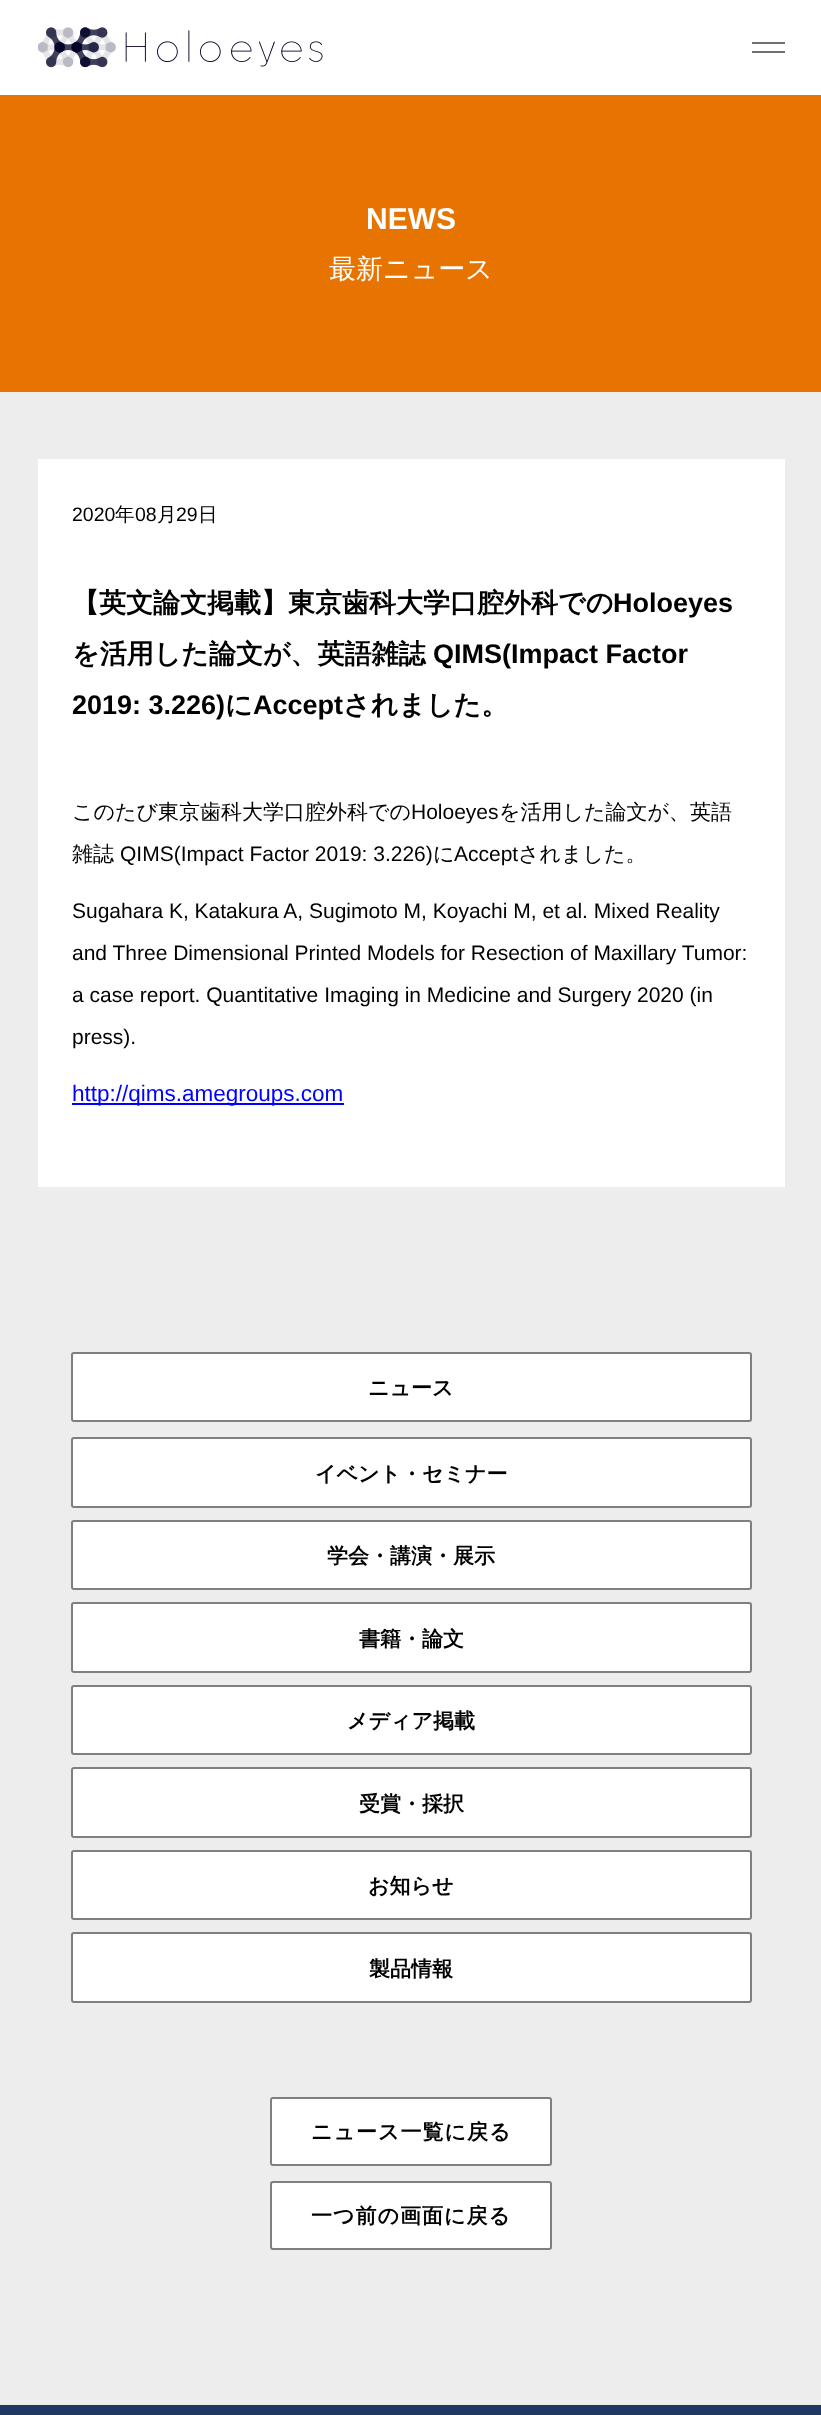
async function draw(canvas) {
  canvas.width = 821;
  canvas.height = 2415;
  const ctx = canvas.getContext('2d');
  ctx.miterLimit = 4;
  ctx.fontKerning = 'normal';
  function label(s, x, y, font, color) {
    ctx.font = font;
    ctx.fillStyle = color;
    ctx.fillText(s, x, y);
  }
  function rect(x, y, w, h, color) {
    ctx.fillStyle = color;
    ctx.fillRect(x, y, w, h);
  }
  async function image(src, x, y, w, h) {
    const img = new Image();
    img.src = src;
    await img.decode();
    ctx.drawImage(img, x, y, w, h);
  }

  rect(0, 0, 821, 2415, '#ededed');
  rect(0, 0, 821, 95, '#fff');
  await image('assets/img1.png', 38, 27, 285, 41);
  rect(752, 42, 33, 2, '#707070');
  rect(752, 51, 33, 2, '#707070');
  rect(0, 95, 821, 297, '#e77400');
  label('NEWS', 366, 229, 'bold 30px Liberation Sans', '#fff');
  label('最新ニュース', 329, 278, '500 27px WenQuanYi Zen Hei', '#fff');
  rect(38, 459, 747, 728, '#fff');
  label('2020', 72, 521, '19.5px Liberation Sans', '#000');
  label('年', 115, 521, '500 19.5px WenQuanYi Zen Hei', '#000');
  label('08', 135, 521, '19.5px Liberation Sans', '#000');
  label('月', 157, 521, '500 19.5px WenQuanYi Zen Hei', '#000');
  label('29', 176, 521, '19.5px Liberation Sans', '#000');
  label('日', 198, 521, '500 19.5px WenQuanYi Zen Hei', '#000');
  label('【英文論文掲載】東京歯科大学口腔外科での', 72, 612, 'bold 27px WenQuanYi Zen Hei', '#000');
  label('Holoeyes', 613, 612, 'bold 27px Liberation Sans', '#000');
  label('を活用した論文が、英語雑誌', 72, 663, 'bold 27px WenQuanYi Zen Hei', '#000');
  label('QIMS(Impact Factor', 433, 663, 'bold 27px Liberation Sans', '#000');
  label('2019: 3.226)', 72, 714, 'bold 27px Liberation Sans', '#000');
  label('に', 225, 714, 'bold 27px WenQuanYi Zen Hei', '#000');
  label('Accept', 253, 714, 'bold 27px Liberation Sans', '#000');
  label('されました。', 343, 714, 'bold 27px WenQuanYi Zen Hei', '#000');
  label('このたび東京歯科大学口腔外科での', 72, 819, '500 21px WenQuanYi Zen Hei', '#000');
  label('Holoeyes', 411, 819, '21px Liberation Sans', '#000');
  label('を活用した論文が、英語', 499, 819, '500 21px WenQuanYi Zen Hei', '#000');
  label('雑誌', 72, 861, '500 21px WenQuanYi Zen Hei', '#000');
  label('QIMS(Impact Factor 2019: 3.226)', 120, 861, '21px Liberation Sans', '#000');
  label('に', 433, 861, '500 21px WenQuanYi Zen Hei', '#000');
  label('Accept', 454, 861, '21px Liberation Sans', '#000');
  label('されました。', 518, 861, '500 21px WenQuanYi Zen Hei', '#000');
  label('Sugahara K, Katakura A, Sugimoto M, Koyachi M, et al. Mixed Reality', 72, 918, '21px Liberation Sans', '#000');
  label('and Three Dimensional Printed Models for Resection of Maxillary Tumor:', 72, 960, '21px Liberation Sans', '#000');
  label('a case report. Quantitative Imaging in Medicine and Surgery 2020 (in', 72, 1002, '21px Liberation Sans', '#000');
  label('press).', 72, 1044, '21px Liberation Sans', '#000');
  rect(72, 1103, 272, 2, '#00f');
  label('http://qims.amegroups.com', 72, 1101, '22.5px Liberation Sans', '#00f');
  ctx.fillStyle = '#fff';
  ctx.beginPath();
  ctx.roundRect(72, 1353, 679, 68, 2);
  ctx.fill();
  ctx.strokeStyle = '#7f7f7f';
  ctx.lineWidth = 2;
  ctx.stroke();
  label('ニュース', 368, 1395, 'bold 21px WenQuanYi Zen Hei', '#000');
  ctx.fillStyle = '#fff';
  ctx.beginPath();
  ctx.roundRect(72, 1438, 679, 69, 2);
  ctx.fill();
  ctx.stroke();
  label('イベント・セミナー', 315, 1481, 'bold 21px WenQuanYi Zen Hei', '#000');
  ctx.fillStyle = '#fff';
  ctx.beginPath();
  ctx.roundRect(72, 1521, 679, 68, 2);
  ctx.fill();
  ctx.stroke();
  label('学会・講演・展示', 327, 1563, 'bold 21px WenQuanYi Zen Hei', '#000');
  ctx.fillStyle = '#fff';
  ctx.beginPath();
  ctx.roundRect(72, 1603, 679, 69, 2);
  ctx.fill();
  ctx.stroke();
  label('書籍・論文', 359, 1646, 'bold 21px WenQuanYi Zen Hei', '#000');
  ctx.fillStyle = '#fff';
  ctx.beginPath();
  ctx.roundRect(72, 1686, 679, 68, 2);
  ctx.fill();
  ctx.stroke();
  label('メディア掲載', 347, 1728, 'bold 21px WenQuanYi Zen Hei', '#000');
  ctx.fillStyle = '#fff';
  ctx.beginPath();
  ctx.roundRect(72, 1768, 679, 69, 2);
  ctx.fill();
  ctx.stroke();
  label('受賞・採択', 359, 1811, 'bold 21px WenQuanYi Zen Hei', '#000');
  ctx.fillStyle = '#fff';
  ctx.beginPath();
  ctx.roundRect(72, 1851, 679, 68, 2);
  ctx.fill();
  ctx.stroke();
  label('お知らせ', 368, 1893, 'bold 21px WenQuanYi Zen Hei', '#000');
  ctx.fillStyle = '#fff';
  ctx.beginPath();
  ctx.roundRect(72, 1933, 679, 69, 2);
  ctx.fill();
  ctx.stroke();
  label('製品情報', 369, 1976, 'bold 21px WenQuanYi Zen Hei', '#000');
  ctx.fillStyle = '#fff';
  ctx.beginPath();
  ctx.roundRect(271, 2098, 280, 67, 2);
  ctx.fill();
  ctx.stroke();
  ctx.letterSpacing = '1px';
  label('ニュース一覧に戻る', 311, 2139, 'bold 21px WenQuanYi Zen Hei', '#000');
  ctx.fillStyle = '#fff';
  ctx.beginPath();
  ctx.roundRect(271, 2182, 280, 67, 2);
  ctx.fill();
  ctx.stroke();
  label('一つ前の画面に戻る', 311, 2223, 'bold 21px WenQuanYi Zen Hei', '#000');
  rect(0, 2405, 821, 10, '#1c3863');
}

draw(document.querySelector('canvas'));
